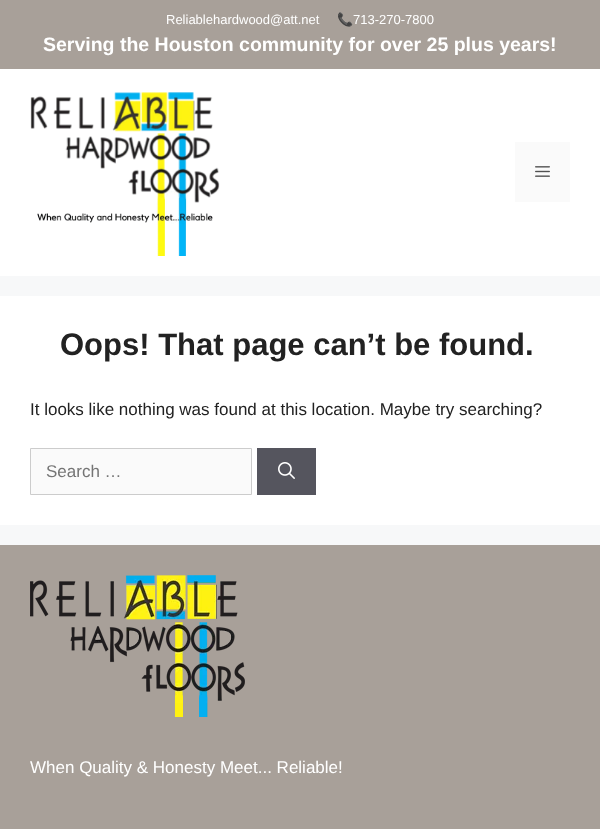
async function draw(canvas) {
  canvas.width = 600;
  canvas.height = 829;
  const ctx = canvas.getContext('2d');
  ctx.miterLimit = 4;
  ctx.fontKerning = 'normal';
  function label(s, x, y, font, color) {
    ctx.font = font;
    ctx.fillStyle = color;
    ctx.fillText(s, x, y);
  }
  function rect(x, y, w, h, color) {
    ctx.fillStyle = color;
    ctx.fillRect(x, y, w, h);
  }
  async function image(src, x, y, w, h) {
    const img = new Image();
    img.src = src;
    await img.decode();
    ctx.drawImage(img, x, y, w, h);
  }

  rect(0, 0, 600, 829, '#f7f8f9');
  rect(0, 0, 600, 69, '#a8a099');
  label('Reliablehardwood@att.net', 166, 24, '13px Liberation Sans', '#fff');
  label('📞', 337, 24, '13px Noto Color Emoji', '#fff');
  label('713-270-7800', 353, 24, '13px Liberation Sans', '#fff');
  label('Serving the Houston community for over 25 plus years!', 43, 51, 'bold 19.5px Liberation Sans', '#fff');
  rect(0, 69, 600, 207, '#fff');
  await image('assets/img1.png', 30, 92, 190, 164);
  rect(515, 142, 55, 60, '#fafafa');
  await image('assets/img2.png', 535, 166, 15, 11);
  rect(0, 296, 600, 229, '#fff');
  label('Oops! That page can’t be found.', 60, 355, 'bold 31px Liberation Sans', '#222');
  label('It looks like nothing was found at this location. Maybe try searching?', 30, 415, '17px Liberation Sans', '#222');
  ctx.fillStyle = '#fafafa';
  ctx.beginPath();
  ctx.rect(30.5, 448.5, 221, 46);
  ctx.fill();
  ctx.strokeStyle = '#ccc';
  ctx.stroke();
  label('Search …', 46, 477, '17px Liberation Sans', '#757575');
  rect(257, 448, 59, 47, '#55555e');
  await image('assets/img3.png', 278, 462, 17, 17);
  rect(0, 545, 600, 284, '#a8a099');
  await image('assets/img4.png', 30, 575, 215, 142);
  label('When Quality & Honesty Meet... Reliable!', 30, 773, '17px Liberation Sans', '#fff');
}

draw(document.querySelector('canvas'));
